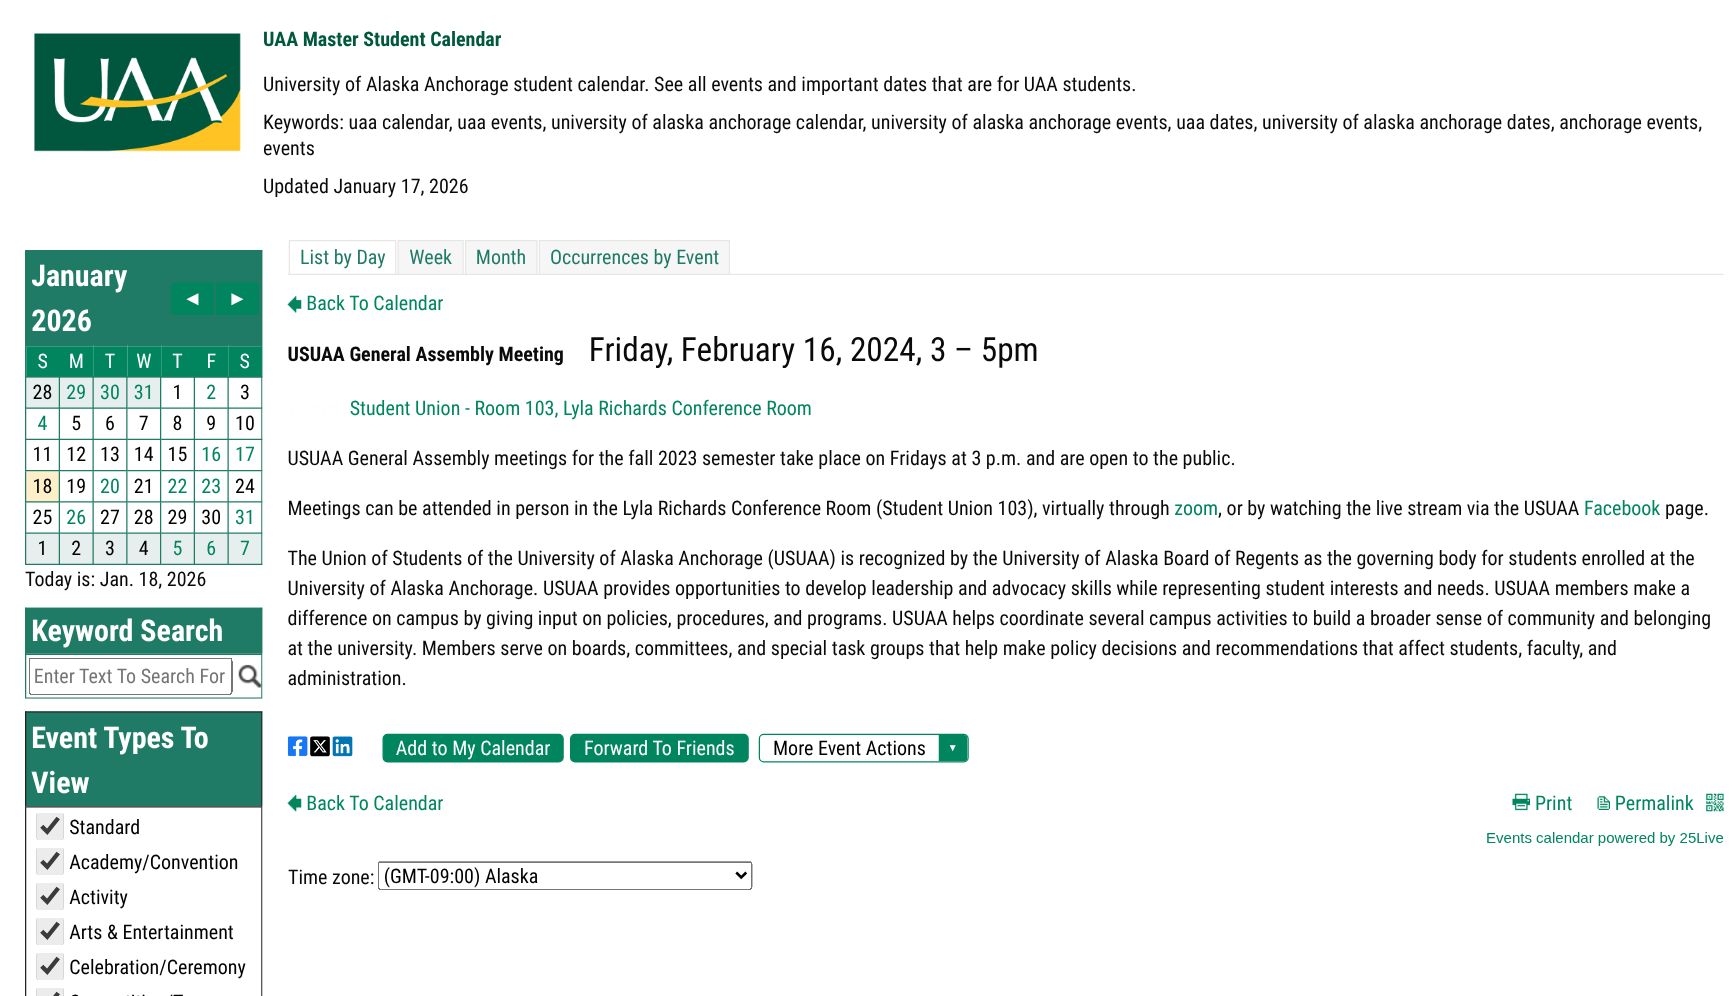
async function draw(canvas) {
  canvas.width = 1736;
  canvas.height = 996;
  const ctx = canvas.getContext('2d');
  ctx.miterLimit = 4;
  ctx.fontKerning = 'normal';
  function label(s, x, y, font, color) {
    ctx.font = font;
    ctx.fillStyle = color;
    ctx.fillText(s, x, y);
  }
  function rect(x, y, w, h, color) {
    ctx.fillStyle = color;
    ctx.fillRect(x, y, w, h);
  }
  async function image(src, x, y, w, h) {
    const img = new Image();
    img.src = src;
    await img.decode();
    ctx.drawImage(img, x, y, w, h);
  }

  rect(0, 0, 1736, 996, '#fff');
  await image('assets/img1.png', 34, 33, 207, 119);
  label('UAA Master Student Calendar', 263, 46, 'bold 20px Roboto Condensed', '#00583d');
  label('University of Alaska Anchorage student calendar. See all events and important dates that are for UAA students.', 263, 91, '20px Roboto Condensed', '#0a0a0a');
  label('Keywords: uaa calendar, uaa events, university of alaska anchorage calendar, university of alaska anchorage events, uaa dates, university of alaska anchorage dates, anchorage events,', 263, 129, '20px Roboto Condensed', '#0a0a0a');
  label('events', 263, 155, '20px Roboto Condensed', '#0a0a0a');
  label('Updated January 17, 2026', 263, 193, '20px Roboto Condensed', '#0a0a0a');
  await image('assets/img2.png', 25, 250, 238, 315);
  label('Today is: Jan. 18, 2026', 25, 586, '20px Roboto Condensed', '#0a0a0a');
  await image('assets/img3.png', 25, 607, 238, 92);
  await image('assets/img4.png', 25, 711, 238, 285);
  await image('assets/img5.png', 287, 240, 1437, 35);
  await image('assets/img6.png', 287, 295, 1437, 551);
  label('Time zone:', 288, 884, '20px Roboto Condensed', '#0a0a0a');
  await image('assets/img7.png', 378, 861, 375, 29);
}

draw(document.querySelector('canvas'));
